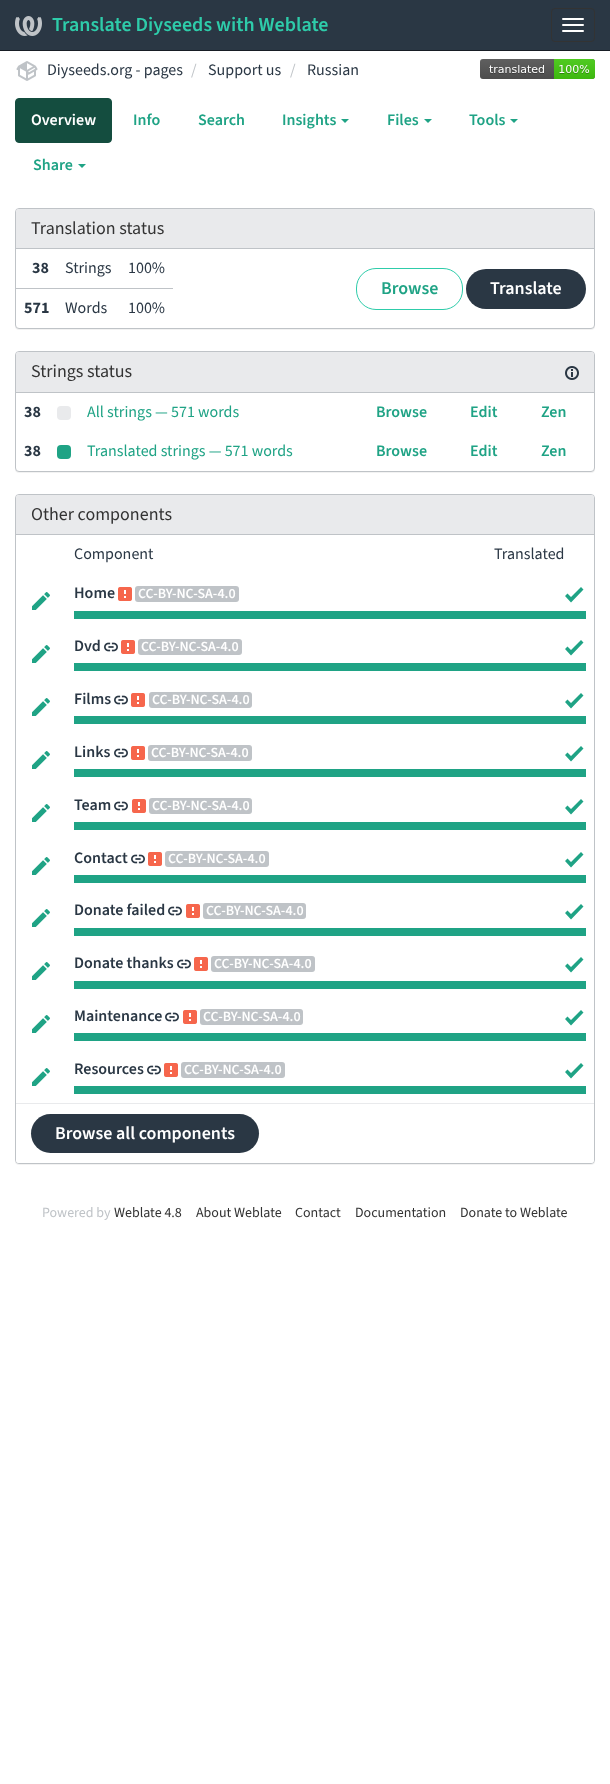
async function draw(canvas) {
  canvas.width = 610;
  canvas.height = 1784;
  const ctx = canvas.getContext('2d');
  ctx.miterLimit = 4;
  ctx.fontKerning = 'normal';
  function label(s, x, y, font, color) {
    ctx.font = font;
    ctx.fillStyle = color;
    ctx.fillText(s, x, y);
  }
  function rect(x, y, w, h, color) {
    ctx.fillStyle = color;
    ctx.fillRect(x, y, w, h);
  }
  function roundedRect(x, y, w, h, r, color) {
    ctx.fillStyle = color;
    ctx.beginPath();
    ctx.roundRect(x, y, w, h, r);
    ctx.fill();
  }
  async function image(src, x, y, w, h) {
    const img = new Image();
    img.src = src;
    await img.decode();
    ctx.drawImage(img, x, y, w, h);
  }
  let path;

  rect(0, 0, 610, 1784, '#fff');
  rect(0, 0, 610, 50, '#2a3744');
  rect(0, 50, 610, 1, '#171d24');
  await image('assets/img1.png', 15, 16, 27, 20);
  label('Translate Diyseeds with Weblate', 52, 31, '600 20px "Source Sans 3"', '#2eccaa');
  ctx.beginPath();
  ctx.roundRect(551.5, 8.5, 43, 33, 3.5);
  ctx.strokeStyle = '#333';
  ctx.stroke();
  roundedRect(562, 18, 22, 2, 1, '#fff');
  roundedRect(562, 24, 22, 2, 1, '#fff');
  roundedRect(562, 30, 22, 2, 1, '#fff');
  await image('assets/img2.png', 16, 61, 22, 20);
  label('Diyseeds.org - pages', 47, 75, '16px "Source Sans 3"', '#2a3744');
  label('/', 191, 75, '16px "Source Sans 3"', '#bfc3c7');
  label('Support us', 208, 75, '16px "Source Sans 3"', '#2a3744');
  label('/', 290, 75, '16px "Source Sans 3"', '#bfc3c7');
  label('Russian', 307, 75, '16px "Source Sans 3"', '#2a3744');
  await image('assets/img3.png', 480, 59, 115, 20);
  ctx.fillStyle = '#144d3f';
  ctx.beginPath();
  ctx.roundRect(15.5, 98.5, 96, 44, 3.5);
  ctx.fill();
  ctx.strokeStyle = '#144d3f';
  ctx.stroke();
  label('Overview', 31, 125, '600 16px "Source Sans 3"', '#fff');
  label('Info', 133, 125, '600 16px "Source Sans 3"', '#1fa385');
  label('Search', 198, 125, '600 16px "Source Sans 3"', '#1fa385');
  label('Insights', 282, 125, '600 16px "Source Sans 3"', '#1fa385');
  path = new Path2D('M341 119H349L345 123Z');
  ctx.fill(path);
  label('Files', 387, 125, '600 16px "Source Sans 3"', '#1fa385');
  path = new Path2D('M424 119H432L428 123Z');
  ctx.fill(path);
  label('Tools', 469, 125, '600 16px "Source Sans 3"', '#1fa385');
  path = new Path2D('M510 119H518L514 123Z');
  ctx.fill(path);
  label('Share', 33, 170, '600 16px "Source Sans 3"', '#1fa385');
  path = new Path2D('M78 164H86L82 168Z');
  ctx.fill(path);
  ctx.fillStyle = '#0000000d';
  ctx.filter = 'blur(0.5px)';
  ctx.beginPath();
  ctx.roundRect(15, 209, 580, 121, 4);
  ctx.fill();
  ctx.filter = 'none';
  ctx.fillStyle = '#fff';
  ctx.beginPath();
  ctx.roundRect(15.5, 208.5, 579, 120, 3.5);
  ctx.fill();
  ctx.strokeStyle = '#bfc3c7';
  ctx.stroke();
  ctx.fillStyle = '#e9eaec';
  ctx.beginPath();
  ctx.roundRect(16, 209, 578, 40, [3, 3, 0, 0]);
  ctx.fill();
  rect(16, 248, 578, 1, '#bfc3c7');
  label('Translation status', 31, 234, '18px "Source Sans 3"', '#333');
  label('38', 32, 273, 'bold 16px "Source Sans 3"', '#2a3744');
  label('Strings', 65, 273, '16px "Source Sans 3"', '#2a3744');
  label('100%', 128, 273, '16px "Source Sans 3"', '#2a3744');
  ctx.beginPath();
  ctx.roundRect(356.5, 268.5, 106, 41, 19.5);
  ctx.strokeStyle = '#2eccaa';
  ctx.stroke();
  label('Browse', 381, 294, '600 18px "Source Sans 3"', '#1fa385');
  roundedRect(466, 269, 120, 40, 20, '#2a3744');
  label('Translate', 490, 294, '600 18px "Source Sans 3"', '#fff');
  label('571', 24, 313, 'bold 16px "Source Sans 3"', '#2a3744');
  label('Words', 65, 313, '16px "Source Sans 3"', '#2a3744');
  rect(16, 288, 157, 1, '#bfc3c7');
  label('100%', 128, 313, '16px "Source Sans 3"', '#2a3744');
  ctx.fillStyle = '#0000000d';
  ctx.filter = 'blur(0.5px)';
  ctx.beginPath();
  ctx.roundRect(15, 352, 580, 121, 4);
  ctx.fill();
  ctx.filter = 'none';
  ctx.fillStyle = '#fff';
  ctx.beginPath();
  ctx.roundRect(15.5, 351.5, 579, 120, 3.5);
  ctx.fill();
  ctx.strokeStyle = '#bfc3c7';
  ctx.stroke();
  ctx.fillStyle = '#e9eaec';
  ctx.beginPath();
  ctx.roundRect(16, 352, 578, 41, [3, 3, 0, 0]);
  ctx.fill();
  rect(16, 392, 578, 1, '#bfc3c7');
  label('Strings status', 31, 377, '18px "Source Sans 3"', '#333');
  await image('assets/img4.png', 565, 366, 14, 14);
  label('38', 24, 417, 'bold 16px "Source Sans 3"', '#2a3744');
  roundedRect(57, 406, 14, 14, 4, '#e9eaec');
  label('All strings — 571 words', 87, 417, '16px "Source Sans 3"', '#1fa385');
  label('Browse', 376, 417, '600 16px "Source Sans 3"', '#1fa385');
  label('Edit', 470, 417, '600 16px "Source Sans 3"', '#1fa385');
  label('Zen', 541, 417, '600 16px "Source Sans 3"', '#1fa385');
  label('38', 24, 456, 'bold 16px "Source Sans 3"', '#2a3744');
  roundedRect(57, 445, 14, 14, 4, '#1fa385');
  label('Translated strings — 571 words', 87, 456, '16px "Source Sans 3"', '#1fa385');
  label('Browse', 376, 456, '600 16px "Source Sans 3"', '#1fa385');
  label('Edit', 470, 456, '600 16px "Source Sans 3"', '#1fa385');
  label('Zen', 541, 456, '600 16px "Source Sans 3"', '#1fa385');
  ctx.fillStyle = '#0000000d';
  ctx.filter = 'blur(0.5px)';
  ctx.beginPath();
  ctx.roundRect(15, 495, 580, 670, 4);
  ctx.fill();
  ctx.filter = 'none';
  ctx.fillStyle = '#fff';
  ctx.beginPath();
  ctx.roundRect(15.5, 494.5, 579, 669, 3.5);
  ctx.fill();
  ctx.stroke();
  ctx.fillStyle = '#e9eaec';
  ctx.beginPath();
  ctx.roundRect(16, 495, 578, 40, [3, 3, 0, 0]);
  ctx.fill();
  rect(16, 534, 578, 1, '#bfc3c7');
  label('Other components', 31, 520, '18px "Source Sans 3"', '#333');
  label('Component', 74, 559, '16px "Source Sans 3"', '#2a3744');
  label('Translated', 494, 559, '16px "Source Sans 3"', '#2a3744');
  await image('assets/img5.png', 32, 592, 18, 18);
  label('Home', 74, 598, '600 16px "Source Sans 3"', '#2a3744');
  await image('assets/img6.png', 118, 587, 14, 14);
  roundedRect(135, 586, 104, 16, 3, '#bfc3c7');
  label('CC-BY-NC-SA-4.0', 138, 598, '600 14px "Source Sans 3"', '#fff');
  ctx.fillStyle = '#1fa385';
  path = new Path2D('M571 602.5L565 596L567.5 593.5L571 597L581 587L583.5 589.5Z');
  ctx.fill(path);
  rect(74, 611, 512, 8, '#1fa385');
  await image('assets/img5.png', 32, 645, 18, 18);
  label('Dvd', 74, 651, '600 16px "Source Sans 3"', '#2a3744');
  await image('assets/img7.png', 104, 642, 14, 10);
  await image('assets/img6.png', 121, 640, 14, 14);
  roundedRect(138, 639, 104, 16, 3, '#bfc3c7');
  label('CC-BY-NC-SA-4.0', 141, 651, '600 14px "Source Sans 3"', '#fff');
  ctx.fillStyle = '#1fa385';
  path = new Path2D('M571 655.5L565 649L567.5 646.5L571 650L581 640L583.5 642.5Z');
  ctx.fill(path);
  rect(74, 663, 512, 8, '#1fa385');
  await image('assets/img5.png', 32, 698, 18, 18);
  label('Films', 74, 704, '600 16px "Source Sans 3"', '#2a3744');
  await image('assets/img7.png', 114, 695, 14, 10);
  await image('assets/img6.png', 131, 693, 14, 14);
  roundedRect(149, 692, 103, 16, 3, '#bfc3c7');
  label('CC-BY-NC-SA-4.0', 152, 704, '600 14px "Source Sans 3"', '#fff');
  ctx.fillStyle = '#1fa385';
  path = new Path2D('M571 708.5L565 702L567.5 699.5L571 703L581 693L583.5 695.5Z');
  ctx.fill(path);
  rect(74, 716, 512, 8, '#1fa385');
  await image('assets/img5.png', 32, 751, 18, 18);
  label('Links', 74, 757, '600 16px "Source Sans 3"', '#2a3744');
  await image('assets/img7.png', 114, 748, 14, 10);
  await image('assets/img6.png', 131, 746, 14, 14);
  roundedRect(148, 745, 104, 16, 3, '#bfc3c7');
  label('CC-BY-NC-SA-4.0', 151, 757, '600 14px "Source Sans 3"', '#fff');
  ctx.fillStyle = '#1fa385';
  path = new Path2D('M571 761.5L565 755L567.5 752.5L571 756L581 746L583.5 748.5Z');
  ctx.fill(path);
  rect(74, 769, 512, 8, '#1fa385');
  await image('assets/img5.png', 32, 804, 18, 18);
  label('Team', 74, 810, '600 16px "Source Sans 3"', '#2a3744');
  await image('assets/img7.png', 114, 801, 14, 10);
  await image('assets/img6.png', 132, 799, 14, 14);
  roundedRect(149, 798, 103, 16, 3, '#bfc3c7');
  label('CC-BY-NC-SA-4.0', 152, 810, '600 14px "Source Sans 3"', '#fff');
  ctx.fillStyle = '#1fa385';
  path = new Path2D('M571 814.5L565 808L567.5 805.5L571 809L581 799L583.5 801.5Z');
  ctx.fill(path);
  rect(74, 822, 512, 8, '#1fa385');
  await image('assets/img5.png', 32, 857, 18, 18);
  label('Contact', 74, 863, '600 16px "Source Sans 3"', '#2a3744');
  await image('assets/img7.png', 131, 854, 14, 10);
  await image('assets/img6.png', 148, 852, 14, 14);
  roundedRect(165, 851, 104, 16, 3, '#bfc3c7');
  label('CC-BY-NC-SA-4.0', 168, 863, '600 14px "Source Sans 3"', '#fff');
  ctx.fillStyle = '#1fa385';
  path = new Path2D('M571 867.5L565 861L567.5 858.5L571 862L581 852L583.5 854.5Z');
  ctx.fill(path);
  rect(74, 875, 512, 8, '#1fa385');
  await image('assets/img5.png', 32, 909, 18, 18);
  label('Donate failed', 74, 915, '600 16px "Source Sans 3"', '#2a3744');
  await image('assets/img7.png', 168, 906, 14, 10);
  await image('assets/img6.png', 186, 904, 14, 14);
  roundedRect(203, 903, 103, 16, 3, '#bfc3c7');
  label('CC-BY-NC-SA-4.0', 206, 915, '600 14px "Source Sans 3"', '#fff');
  ctx.fillStyle = '#1fa385';
  path = new Path2D('M571 919.5L565 913L567.5 910.5L571 914L581 904L583.5 906.5Z');
  ctx.fill(path);
  rect(74, 928, 512, 8, '#1fa385');
  await image('assets/img5.png', 32, 962, 18, 18);
  label('Donate thanks', 74, 968, '600 16px "Source Sans 3"', '#2a3744');
  await image('assets/img7.png', 177, 959, 14, 10);
  await image('assets/img6.png', 194, 957, 14, 14);
  roundedRect(211, 956, 104, 16, 3, '#bfc3c7');
  label('CC-BY-NC-SA-4.0', 214, 968, '600 14px "Source Sans 3"', '#fff');
  ctx.fillStyle = '#1fa385';
  path = new Path2D('M571 972.5L565 966L567.5 963.5L571 967L581 957L583.5 959.5Z');
  ctx.fill(path);
  rect(74, 981, 512, 8, '#1fa385');
  await image('assets/img5.png', 32, 1015, 18, 18);
  label('Maintenance', 74, 1021, '600 16px "Source Sans 3"', '#2a3744');
  await image('assets/img7.png', 165, 1012, 14, 10);
  await image('assets/img6.png', 183, 1010, 14, 14);
  roundedRect(200, 1009, 103, 16, 3, '#bfc3c7');
  label('CC-BY-NC-SA-4.0', 203, 1021, '600 14px "Source Sans 3"', '#fff');
  ctx.fillStyle = '#1fa385';
  path = new Path2D('M571 1025.5L565 1019L567.5 1016.5L571 1020L581 1010L583.5 1012.5Z');
  ctx.fill(path);
  rect(74, 1033, 512, 8, '#1fa385');
  await image('assets/img5.png', 32, 1068, 18, 18);
  label('Resources', 74, 1074, '600 16px "Source Sans 3"', '#2a3744');
  await image('assets/img7.png', 147, 1065, 14, 10);
  await image('assets/img6.png', 164, 1063, 14, 14);
  roundedRect(181, 1062, 104, 16, 3, '#bfc3c7');
  label('CC-BY-NC-SA-4.0', 184, 1074, '600 14px "Source Sans 3"', '#fff');
  ctx.fillStyle = '#1fa385';
  path = new Path2D('M571 1078.5L565 1072L567.5 1069.5L571 1073L581 1063L583.5 1065.5Z');
  ctx.fill(path);
  rect(74, 1086, 512, 8, '#1fa385');
  ctx.fillStyle = '#fff';
  ctx.beginPath();
  ctx.roundRect(16, 1103, 578, 60, [0, 0, 3, 3]);
  ctx.fill();
  rect(16, 1103, 578, 1, '#e9eaec');
  roundedRect(31, 1114, 228, 39, 19.5, '#2a3744');
  label('Browse all components', 55, 1139, '600 18px "Source Sans 3"', '#fff');
  label('Powered by', 42, 1217, '14px "Source Sans 3"', '#bfc3c7');
  label('Weblate 4.8', 114, 1217, '14px "Source Sans 3"', '#333');
  label('About Weblate', 196, 1217, '14px "Source Sans 3"', '#333');
  label('Contact', 295, 1217, '14px "Source Sans 3"', '#333');
  label('Documentation', 355, 1217, '14px "Source Sans 3"', '#333');
  label('Donate to Weblate', 460, 1217, '14px "Source Sans 3"', '#333');
}

draw(document.querySelector('canvas'));
